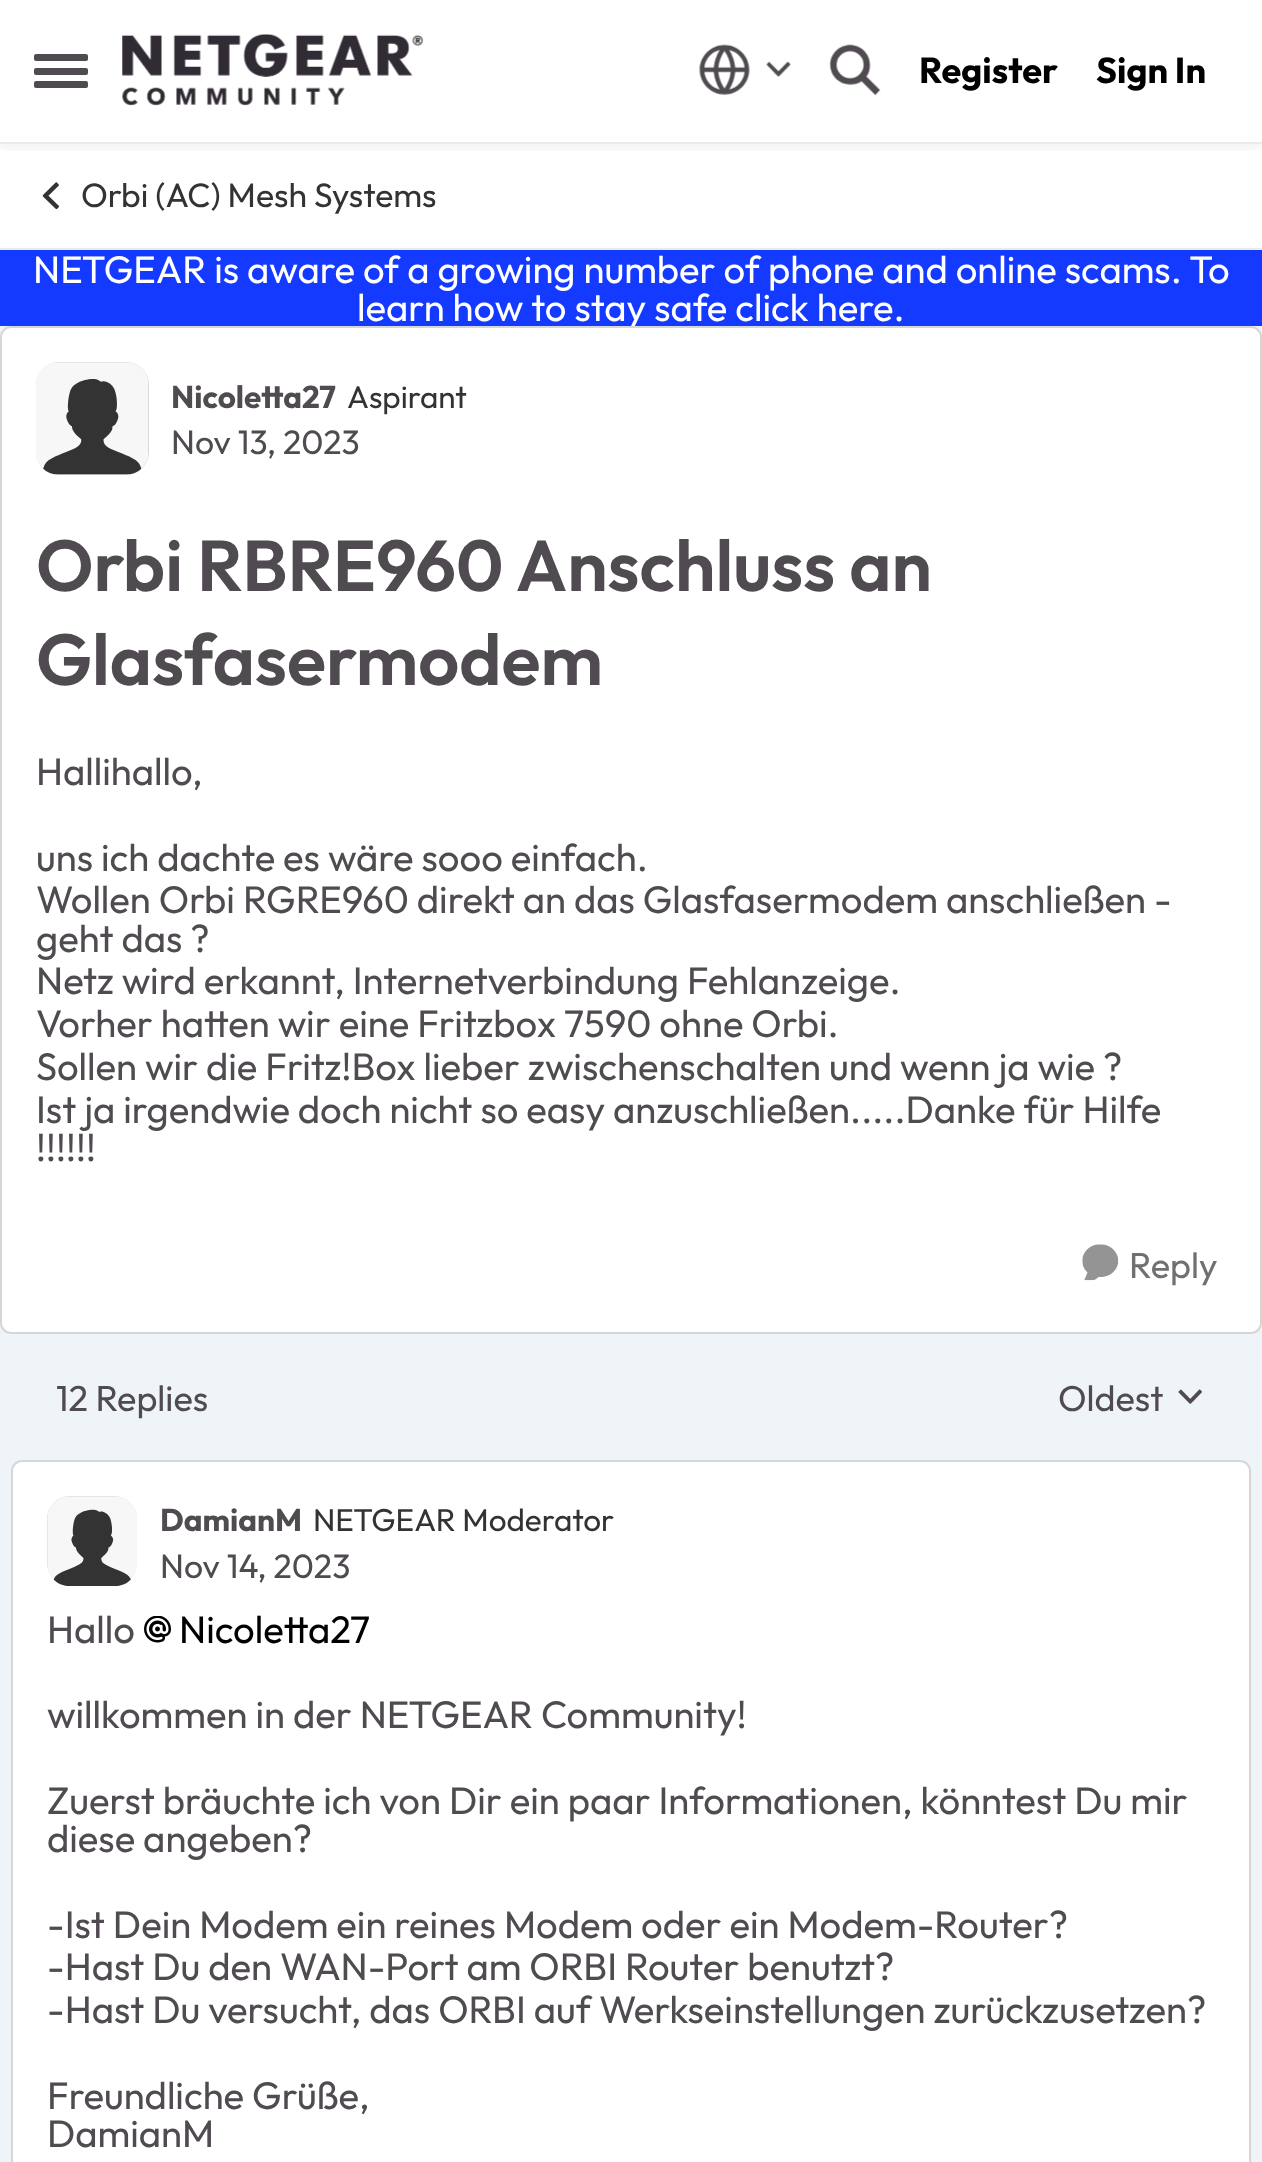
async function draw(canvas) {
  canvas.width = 1262;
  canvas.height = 2162;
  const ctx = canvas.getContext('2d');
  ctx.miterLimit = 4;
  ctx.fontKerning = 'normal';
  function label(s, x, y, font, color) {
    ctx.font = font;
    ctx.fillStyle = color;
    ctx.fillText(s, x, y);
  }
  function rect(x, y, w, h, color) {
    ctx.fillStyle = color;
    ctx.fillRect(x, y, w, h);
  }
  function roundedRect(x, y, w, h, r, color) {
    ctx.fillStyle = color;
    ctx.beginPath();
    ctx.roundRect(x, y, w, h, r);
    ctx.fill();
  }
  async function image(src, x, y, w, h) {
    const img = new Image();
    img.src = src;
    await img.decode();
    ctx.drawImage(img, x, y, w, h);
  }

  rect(0, 0, 1262, 2162, '#eff4f9');
  rect(0, 0, 1262, 248, '#fff');
  ctx.save();
  ctx.beginPath();
  ctx.rect(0, 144, 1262, 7);
  ctx.clip();
  ctx.fillStyle = '#3333330f';
  ctx.filter = 'blur(4.5px)';
  ctx.beginPath();
  ctx.rect(0, 5, 1262, 144);
  ctx.fill();
  ctx.filter = 'none';
  ctx.restore();
  rect(0, 142, 1262, 2, '#ebebeb');
  roundedRect(34, 54, 54, 7, 2, '#504b51');
  roundedRect(34, 68, 54, 7, 2, '#504b51');
  roundedRect(34, 81, 54, 7, 2, '#504b51');
  await image('assets/img1.png', 122, 34, 302, 72);
  await image('assets/img2.png', 699, 44, 51, 51);
  await image('assets/img3.png', 766, 61, 25, 16);
  await image('assets/img4.png', 829, 44, 52, 52);
  label('Register', 919, 83, 'bold 36px Outfit', '#000');
  label('Sign In', 1096, 83, 'bold 36px Outfit', '#000');
  rect(0, 248, 1262, 2, '#ebebeb');
  await image('assets/img5.png', 42, 182, 18, 28);
  label('Orbi (AC) Mesh Systems', 81, 207, '33.75px Outfit', '#333');
  rect(0, 250, 1262, 76, '#1439ff');
  label('NETGEAR is aware of a growing number of phone and online scams. To', 33, 283, '38.25px Outfit', '#fff');
  label('learn how to stay safe click here.', 357, 321, '38.25px Outfit', '#fff');
  roundedRect(0, 326, 1262, 1008, 11, '#fff');
  ctx.beginPath();
  ctx.roundRect(1, 327, 1260, 1006, 10);
  ctx.strokeStyle = '#00000029';
  ctx.lineWidth = 2;
  ctx.stroke();
  roundedRect(36, 362, 113, 113, 23, '#d9d9d9');
  await image('assets/img6.png', 36, 362, 112, 113);
  label('Nicoletta27', 171, 408, 'bold 31.5px Outfit', '#504b51');
  label('Aspirant', 347, 408, '31.5px Outfit', '#333');
  label('Nov 13, 2023', 171, 454, '33.75px Outfit', '#504b51');
  label('Orbi RBRE960 Anschluss an', 36, 591, '600 72px Outfit', '#504b51');
  label('Glasfasermodem', 36, 685, '600 72px Outfit', '#504b51');
  label('Hallihallo,', 36, 785, '38.25px Outfit', '#504b51');
  label('uns ich dachte es wäre sooo einfach.', 36, 871, '38.25px Outfit', '#504b51');
  label('Wollen Orbi RGRE960 direkt an das Glasfasermodem anschließen -', 36, 913, '38.25px Outfit', '#504b51');
  label('geht das ?', 36, 952, '38.25px Outfit', '#504b51');
  label('Netz wird erkannt, Internetverbindung Fehlanzeige.', 36, 994, '38.25px Outfit', '#504b51');
  label('Vorher hatten wir eine Fritzbox 7590 ohne Orbi.', 36, 1037, '38.25px Outfit', '#504b51');
  label('Sollen wir die Fritz!Box lieber zwischenschalten und wenn ja wie ?', 36, 1080, '38.25px Outfit', '#504b51');
  label('Ist ja irgendwie doch nicht so easy anzuschließen.....Danke für Hilfe', 36, 1123, '38.25px Outfit', '#504b51');
  label('!!!!!!', 36, 1161, '38.25px Outfit', '#504b51');
  await image('assets/img7.png', 1082, 1244, 37, 37);
  label('Reply', 1129, 1278, '36px Outfit', '#707070');
  label('12 Replies', 56, 1411, '36px Outfit', '#504b51');
  label('Oldest', 1058, 1411, '36px Outfit', '#504b51');
  await image('assets/img8.png', 1178, 1389, 24, 15);
  roundedRect(11, 1460, 1240, 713, 11, '#fff');
  ctx.beginPath();
  ctx.roundRect(12, 1461, 1238, 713, 10);
  ctx.stroke();
  roundedRect(47, 1496, 90, 90, 23, '#d9d9d9');
  await image('assets/img9.png', 47, 1496, 90, 90);
  label('DamianM', 160, 1531, 'bold 31.5px Outfit', '#504b51');
  label('NETGEAR Moderator', 313, 1531, '31.5px Outfit', '#333');
  label('Nov 14, 2023', 160, 1578, '33.75px Outfit', '#504b51');
  label('Hallo', 47, 1643, '38.25px Outfit', '#504b51');
  await image('assets/img10.png', 144, 1616, 27, 27);
  label('Nicoletta27', 179, 1643, '38.25px Outfit', '#000');
  label('willkommen in der NETGEAR Community!', 47, 1728, '38.25px Outfit', '#504b51');
  label('Zuerst bräuchte ich von Dir ein paar Informationen, könntest Du mir', 47, 1814, '38.25px Outfit', '#504b51');
  label('diese angeben?', 47, 1852, '38.25px Outfit', '#504b51');
  label('-Ist Dein Modem ein reines Modem oder ein Modem-Router?', 47, 1938, '38.25px Outfit', '#504b51');
  label('-Hast Du den WAN-Port am ORBI Router benutzt?', 47, 1980, '38.25px Outfit', '#504b51');
  label('-Hast Du versucht, das ORBI auf Werkseinstellungen zurückzusetzen?', 47, 2023, '38.25px Outfit', '#504b51');
  label('Freundliche Grüße,', 47, 2109, '38.25px Outfit', '#504b51');
  label('DamianM', 47, 2147, '38.25px Outfit', '#504b51');
}

draw(document.querySelector('canvas'));
